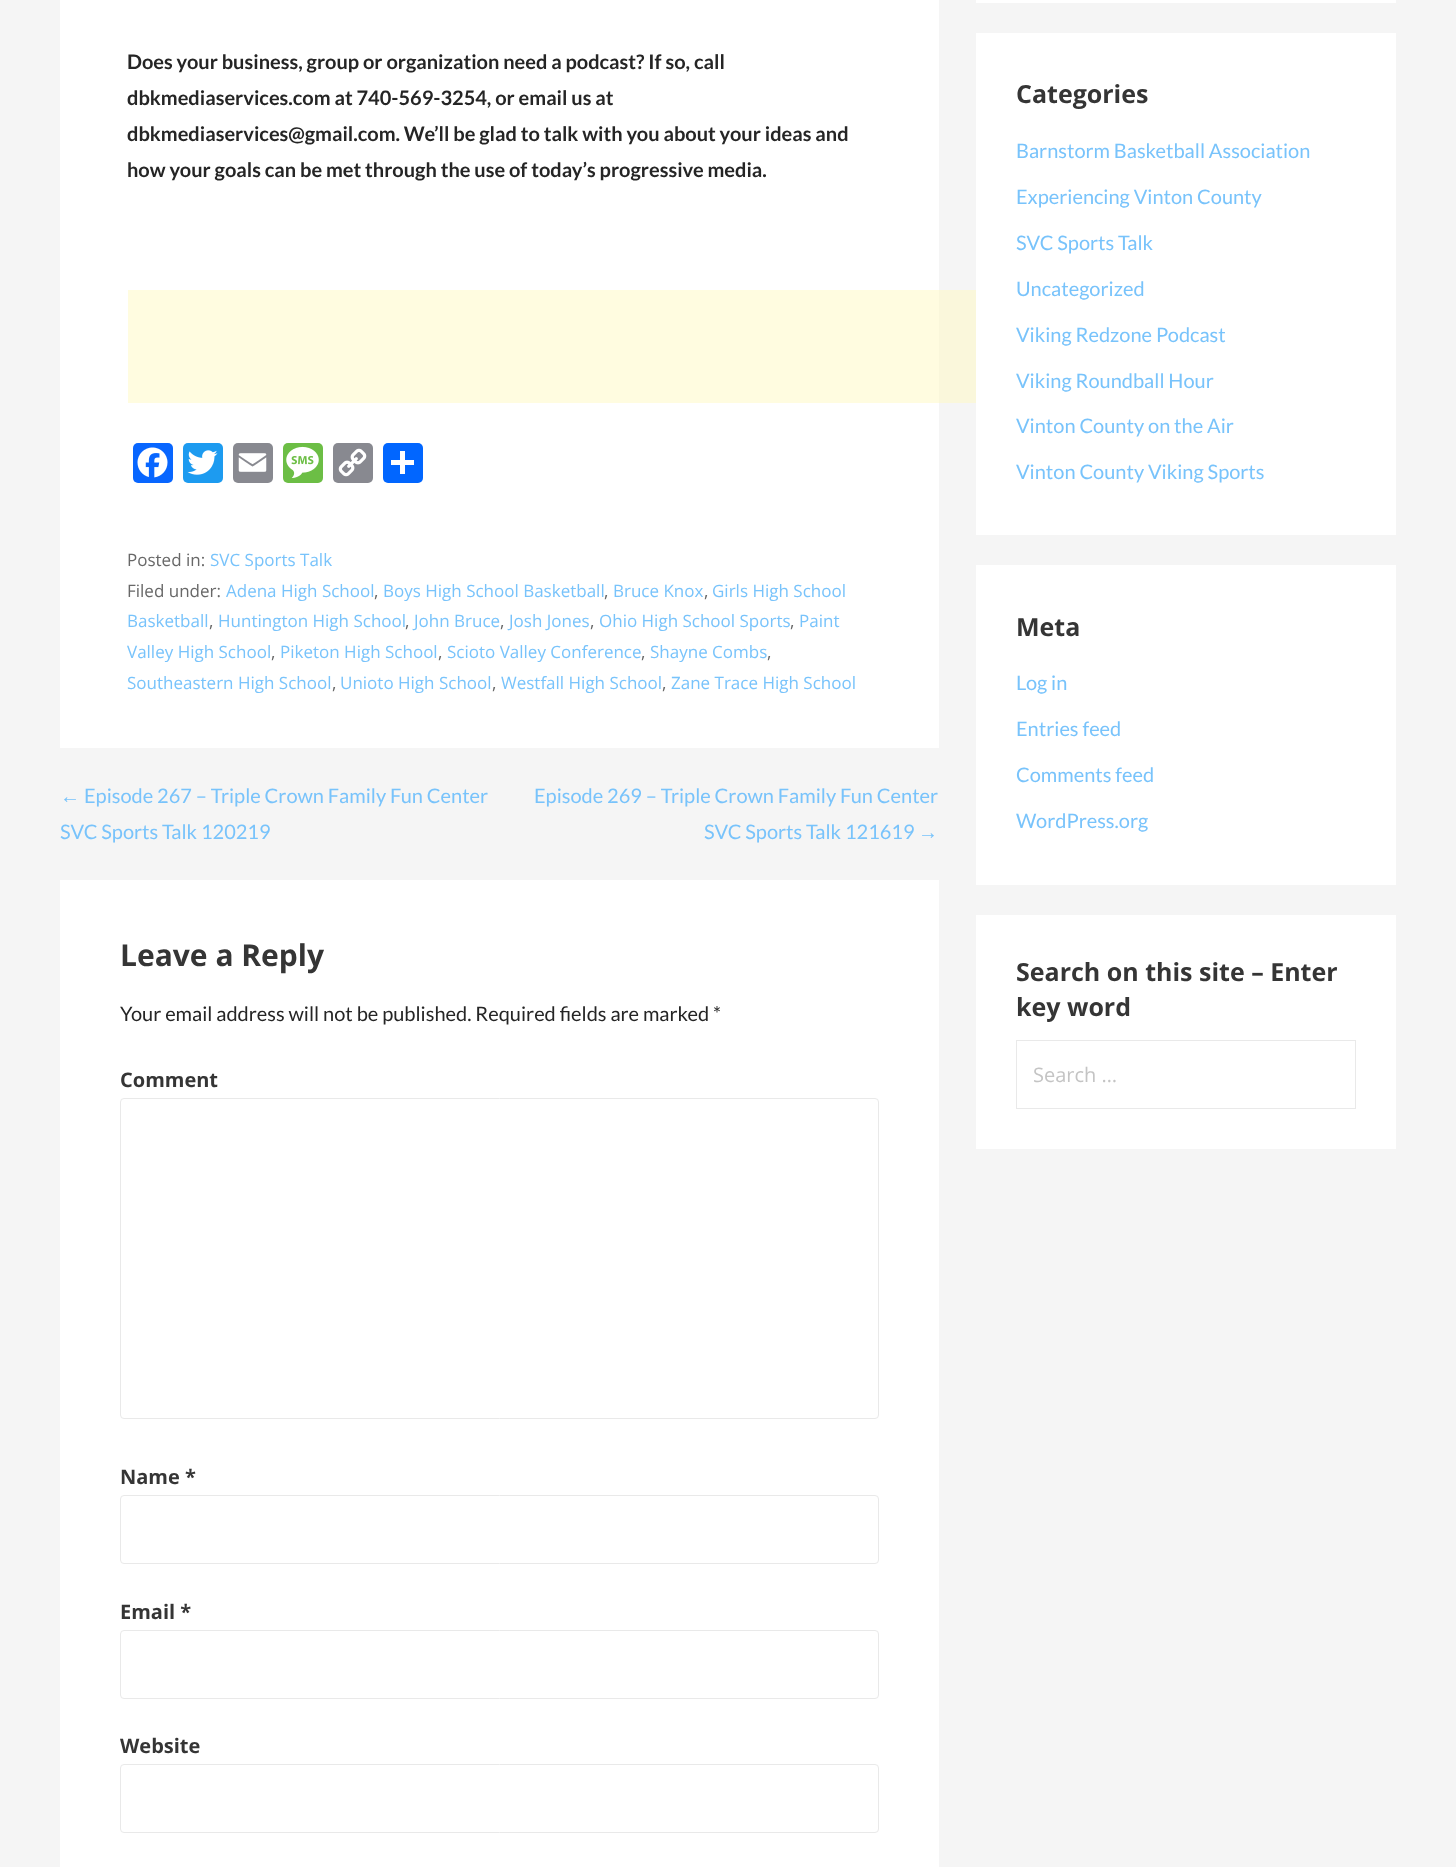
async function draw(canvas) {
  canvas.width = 1456;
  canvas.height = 1867;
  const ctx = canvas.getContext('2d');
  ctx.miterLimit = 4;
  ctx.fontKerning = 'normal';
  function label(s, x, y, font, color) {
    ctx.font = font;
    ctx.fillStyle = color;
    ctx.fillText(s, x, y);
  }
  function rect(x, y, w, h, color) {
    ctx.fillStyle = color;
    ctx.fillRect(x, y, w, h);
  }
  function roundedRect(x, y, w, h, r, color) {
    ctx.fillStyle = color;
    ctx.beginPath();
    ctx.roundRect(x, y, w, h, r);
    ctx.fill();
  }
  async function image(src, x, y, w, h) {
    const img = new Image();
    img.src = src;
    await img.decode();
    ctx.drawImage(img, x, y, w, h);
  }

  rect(0, 0, 1456, 1867, '#f5f5f5');
  rect(939, 290, 37, 113, '#faf7db');
  rect(60, 0, 879, 748, '#fff');
  rect(128, 290, 811, 113, '#fffce0');
  label('Does your business, group or organization need a podcast? If so, call', 127, 69, 'bold 20px Lato', '#252525');
  label('dbkmediaservices.com at 740-569-3254, or email us at', 127, 105, 'bold 20px Lato', '#252525');
  label('dbkmediaservices@gmail.com. We’ll be glad to talk with you about your ideas and', 127, 141, 'bold 20px Lato', '#252525');
  label('how your goals can be met through the use of today’s progressive media.', 127, 177, 'bold 20px Lato', '#252525');
  roundedRect(133, 443, 40, 40, 5, '#0866ff');
  await image('assets/img1.png', 137, 447, 31, 31);
  roundedRect(183, 443, 40, 40, 5, '#1d9bf0');
  await image('assets/img2.png', 187, 450, 31, 25);
  roundedRect(233, 443, 40, 40, 5, '#888990');
  await image('assets/img3.png', 238, 453, 29, 19);
  roundedRect(283, 443, 40, 40, 5, '#6cbe45');
  await image('assets/img4.png', 286, 446, 33, 32);
  roundedRect(333, 443, 40, 40, 5, '#888990');
  await image('assets/img5.png', 338, 448, 29, 29);
  roundedRect(383, 443, 40, 40, 5, '#0166ff');
  rect(400, 451, 5, 23, '#fff');
  rect(391, 460, 23, 5, '#fff');
  label('Posted in:', 127, 566, '17px Open Sans', '#686868');
  label('SVC Sports Talk', 210, 566, '17px Open Sans', '#78c3fb');
  label('Filed under:', 127, 597, '17px Open Sans', '#686868');
  label('Adena High School', 226, 597, '17px Open Sans', '#78c3fb');
  label(',', 374, 597, '17px Open Sans', '#686868');
  label('Boys High School Basketball', 383, 597, '17px Open Sans', '#78c3fb');
  label(',', 604, 597, '17px Open Sans', '#686868');
  label('Bruce Knox', 613, 597, '17px Open Sans', '#78c3fb');
  label(',', 704, 597, '17px Open Sans', '#686868');
  label('Girls High School', 712, 597, '17px Open Sans', '#78c3fb');
  label('Basketball', 127, 627, '17px Open Sans', '#78c3fb');
  label(',', 209, 627, '17px Open Sans', '#686868');
  label('Huntington High School', 218, 627, '17px Open Sans', '#78c3fb');
  label(',', 405, 627, '17px Open Sans', '#686868');
  label('John Bruce', 414, 627, '17px Open Sans', '#78c3fb');
  label(',', 500, 627, '17px Open Sans', '#686868');
  label('Josh Jones', 509, 627, '17px Open Sans', '#78c3fb');
  label(',', 590, 627, '17px Open Sans', '#686868');
  label('Ohio High School Sports', 599, 627, '17px Open Sans', '#78c3fb');
  label(',', 790, 627, '17px Open Sans', '#686868');
  label('Paint', 799, 627, '17px Open Sans', '#78c3fb');
  label('Valley High School', 127, 658, '17px Open Sans', '#78c3fb');
  label(',', 271, 658, '17px Open Sans', '#686868');
  label('Piketon High School', 280, 658, '17px Open Sans', '#78c3fb');
  label(',', 438, 658, '17px Open Sans', '#686868');
  label('Scioto Valley Conference', 447, 658, '17px Open Sans', '#78c3fb');
  label(',', 641, 658, '17px Open Sans', '#686868');
  label('Shayne Combs', 650, 658, '17px Open Sans', '#78c3fb');
  label(',', 767, 658, '17px Open Sans', '#686868');
  label('Southeastern High School', 127, 689, '17px Open Sans', '#78c3fb');
  label(',', 332, 689, '17px Open Sans', '#686868');
  label('Unioto High School', 340, 689, '17px Open Sans', '#78c3fb');
  label(',', 492, 689, '17px Open Sans', '#686868');
  label('Westfall High School', 501, 689, '17px Open Sans', '#78c3fb');
  label(',', 662, 689, '17px Open Sans', '#686868');
  label('Zane Trace High School', 671, 689, '17px Open Sans', '#78c3fb');
  label('←', 60, 803, '20px Liberation Sans', '#78c3fb');
  label('Episode 267 – Triple Crown Family Fun Center', 84, 803, '20px Lato', '#78c3fb');
  label('SVC Sports Talk 120219', 60, 839, '20px Lato', '#78c3fb');
  label('Episode 269 – Triple Crown Family Fun Center', 534, 803, '20px Lato', '#78c3fb');
  label('SVC Sports Talk 121619', 704, 839, '20px Lato', '#78c3fb');
  label('→', 918, 839, '20px Liberation Sans', '#78c3fb');
  rect(60, 880, 879, 987, '#fff');
  label('Leave a Reply', 120, 966, 'bold 30px Open Sans', '#353535');
  label('Your email address will not be published. Required fields are marked *', 120, 1021, '20px Lato', '#252525');
  label('Comment', 120, 1087, 'bold 20px Open Sans', '#353535');
  ctx.beginPath();
  ctx.roundRect(120.5, 1098.5, 758, 320, 3.5);
  ctx.strokeStyle = '#e9e9e9';
  ctx.stroke();
  label('Name *', 120, 1484, 'bold 20px Open Sans', '#353535');
  ctx.beginPath();
  ctx.roundRect(120.5, 1495.5, 758, 68, 3.5);
  ctx.stroke();
  label('Email *', 120, 1619, 'bold 20px Open Sans', '#353535');
  ctx.beginPath();
  ctx.roundRect(120.5, 1630.5, 758, 68, 3.5);
  ctx.stroke();
  label('Website', 120, 1753, 'bold 20px Open Sans', '#353535');
  ctx.beginPath();
  ctx.roundRect(120.5, 1764.5, 758, 68, 3.5);
  ctx.stroke();
  rect(976, 0, 420, 3, '#fff');
  rect(976, 33, 420, 502, '#fff');
  label('Categories', 1016, 103, 'bold 25px Open Sans', '#353535');
  label('Barnstorm Basketball Association', 1016, 158, '20px Lato', '#78c3fb');
  label('Experiencing Vinton County', 1016, 204, '20px Lato', '#78c3fb');
  label('SVC Sports Talk', 1016, 250, '20px Lato', '#78c3fb');
  label('Uncategorized', 1016, 296, '20px Lato', '#78c3fb');
  label('Viking Redzone Podcast', 1016, 342, '20px Lato', '#78c3fb');
  label('Viking Roundball Hour', 1016, 388, '20px Lato', '#78c3fb');
  label('Vinton County on the Air', 1016, 433, '20px Lato', '#78c3fb');
  label('Vinton County Viking Sports', 1016, 479, '20px Lato', '#78c3fb');
  rect(976, 565, 420, 320, '#fff');
  label('Meta', 1016, 636, 'bold 25px Open Sans', '#353535');
  label('Log in', 1016, 690, '20px Lato', '#78c3fb');
  label('Entries feed', 1016, 736, '20px Lato', '#78c3fb');
  label('Comments feed', 1016, 782, '20px Lato', '#78c3fb');
  label('WordPress.org', 1016, 828, '20px Lato', '#78c3fb');
  rect(976, 915, 420, 234, '#fff');
  label('Search on this site – Enter', 1016, 981, 'bold 25px Open Sans', '#353535');
  label('key word', 1016, 1016, 'bold 25px Open Sans', '#353535');
  ctx.strokeRect(1016.5, 1040.5, 339, 68);
  label('Search …', 1033, 1082, '20px Open Sans', '#c4c4c4');
}

draw(document.querySelector('canvas'));
